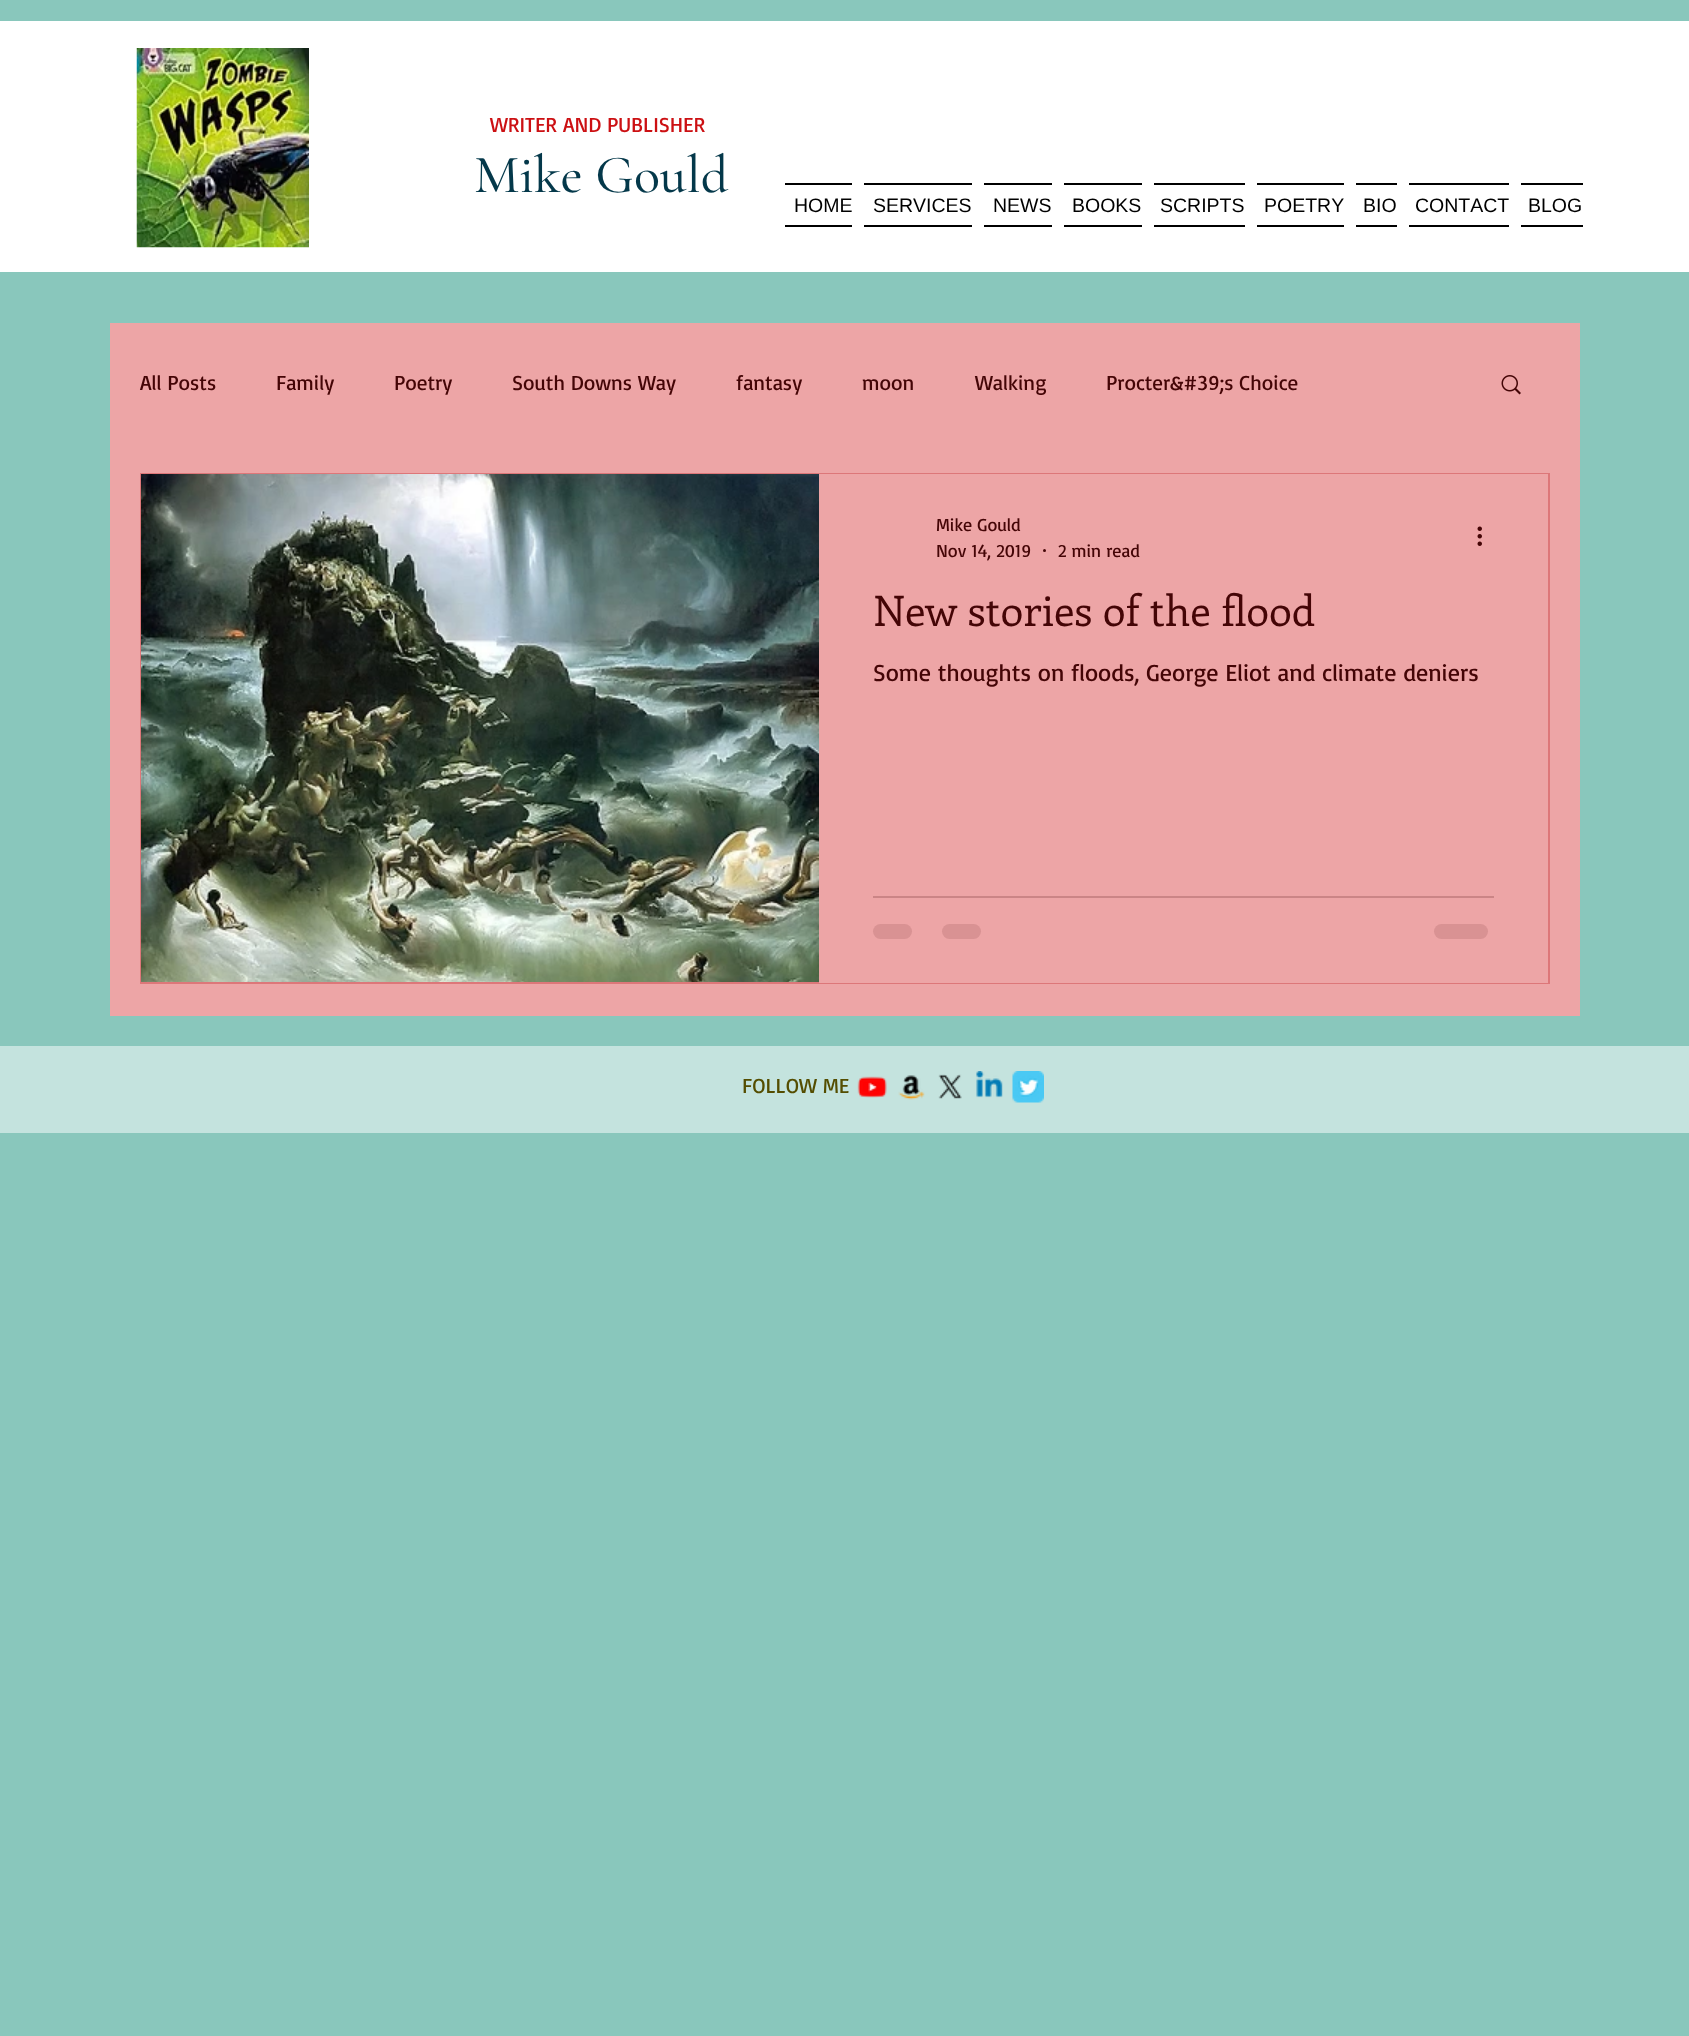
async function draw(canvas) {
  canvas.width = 1689;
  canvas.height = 2036;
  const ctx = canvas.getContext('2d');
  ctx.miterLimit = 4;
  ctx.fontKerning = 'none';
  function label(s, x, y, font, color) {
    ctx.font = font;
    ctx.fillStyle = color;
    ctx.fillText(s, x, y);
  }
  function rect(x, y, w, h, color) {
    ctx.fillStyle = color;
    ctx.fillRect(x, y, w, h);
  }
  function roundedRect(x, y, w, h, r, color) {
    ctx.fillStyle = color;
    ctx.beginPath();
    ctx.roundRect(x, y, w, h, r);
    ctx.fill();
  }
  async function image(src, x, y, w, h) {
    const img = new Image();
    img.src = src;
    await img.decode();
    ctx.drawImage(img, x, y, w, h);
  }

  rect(0, 0, 1689, 2036, '#89c7bc');
  rect(0, 21, 1689, 251, '#fff');
  await image('assets/img1.png', 136, 48, 173, 200);
  label('WRITER AND PUBLISHER', 490, 132, '21px Basic', '#cc1013');
  label('Mike Gould', 474, 192, '500 54px Cormorant Garamond', '#04384a');
  rect(785, 183, 67, 2, '#000');
  rect(785, 225, 67, 2, '#000');
  label('HOME', 794, 212, '19.5px Liberation Sans', '#000');
  rect(864, 183, 108, 2, '#000');
  rect(864, 225, 108, 2, '#000');
  label('SERVICES', 873, 212, '19.5px Liberation Sans', '#000');
  rect(984, 183, 68, 2, '#000');
  rect(984, 225, 68, 2, '#000');
  label('NEWS', 993, 212, '19.5px Liberation Sans', '#000');
  rect(1064, 183, 78, 2, '#000');
  rect(1064, 225, 78, 2, '#000');
  label('BOOKS', 1072, 212, '19.5px Liberation Sans', '#000');
  rect(1154, 183, 91, 2, '#000');
  rect(1154, 225, 91, 2, '#000');
  label('SCRIPTS', 1160, 212, '19.5px Liberation Sans', '#000');
  rect(1257, 183, 87, 2, '#000');
  rect(1257, 225, 87, 2, '#000');
  label('POETRY', 1264, 212, '19.5px Liberation Sans', '#000');
  rect(1356, 183, 41, 2, '#000');
  rect(1356, 225, 41, 2, '#000');
  label('BIO', 1363, 212, '19.5px Liberation Sans', '#000');
  rect(1409, 183, 100, 2, '#000');
  rect(1409, 225, 100, 2, '#000');
  label('CONTACT', 1415, 212, '19.5px Liberation Sans', '#000');
  rect(1521, 183, 62, 2, '#000');
  rect(1521, 225, 62, 2, '#000');
  label('BLOG', 1528, 212, '19.5px Liberation Sans', '#000');
  rect(110, 323, 1470, 693, '#eda5a6');
  label('All Posts', 140, 390, '21px Basic', '#440506');
  label('Family', 276, 390, '21px Basic', '#440506');
  label('Poetry', 394, 390, '21px Basic', '#440506');
  label('South Downs Way', 512, 390, '21px Basic', '#440506');
  label('fantasy', 736, 390, '21px Basic', '#440506');
  label('moon', 862, 390, '21px Basic', '#440506');
  label('Walking', 975, 390, '21px Basic', '#440506');
  label('Procter&#39;s Choice', 1106, 390, '21px Basic', '#440506');
  await image('assets/img2.png', 1501, 375, 20, 20);
  ctx.strokeStyle = '#dd7779';
  ctx.lineWidth = 2;
  ctx.strokeRect(141, 474, 1408, 509);
  await image('assets/img3.png', 141, 474, 678, 508);
  rect(819, 474, 729, 509, '#eda5a6');
  label('Mike Gould', 936, 531, '18px Basic', '#440506');
  label('Nov 14, 2019', 936, 557, '18px Basic', '#440506');
  ctx.beginPath();
  ctx.arc(1044.5, 550.5, 1.5, 0, 2 * Math.PI);
  ctx.fill();
  label('2 min read', 1058, 557, '18px Basic', '#440506');
  await image('assets/img4.png', 1477, 526, 5, 20);
  label('New stories of the flood', 873, 626, '42px Enriqueta', '#440506');
  label('Some thoughts on floods, George Eliot and climate deniers', 873, 681, '24px Basic', '#440506');
  rect(873, 896, 621, 2, '#cb8586');
  roundedRect(873, 924, 39, 15, 7.5, '#d99293');
  roundedRect(942, 924, 39, 15, 7.5, '#d99293');
  roundedRect(1434, 924, 54, 15, 7.5, '#d99293');
  rect(0, 1046, 1689, 87, '#c4e3de');
  label('FOLLOW ME', 742, 1093, '21px Basic', '#544d00');
  await image('assets/img5.png', 857, 1076, 30, 22);
  await image('assets/img6.png', 898, 1075, 27, 25);
  await image('assets/img7.png', 938, 1074, 24, 25);
  await image('assets/img8.png', 976, 1071, 27, 27);
  await image('assets/img9.png', 1012, 1071, 32, 32);
}

draw(document.querySelector('canvas'));
